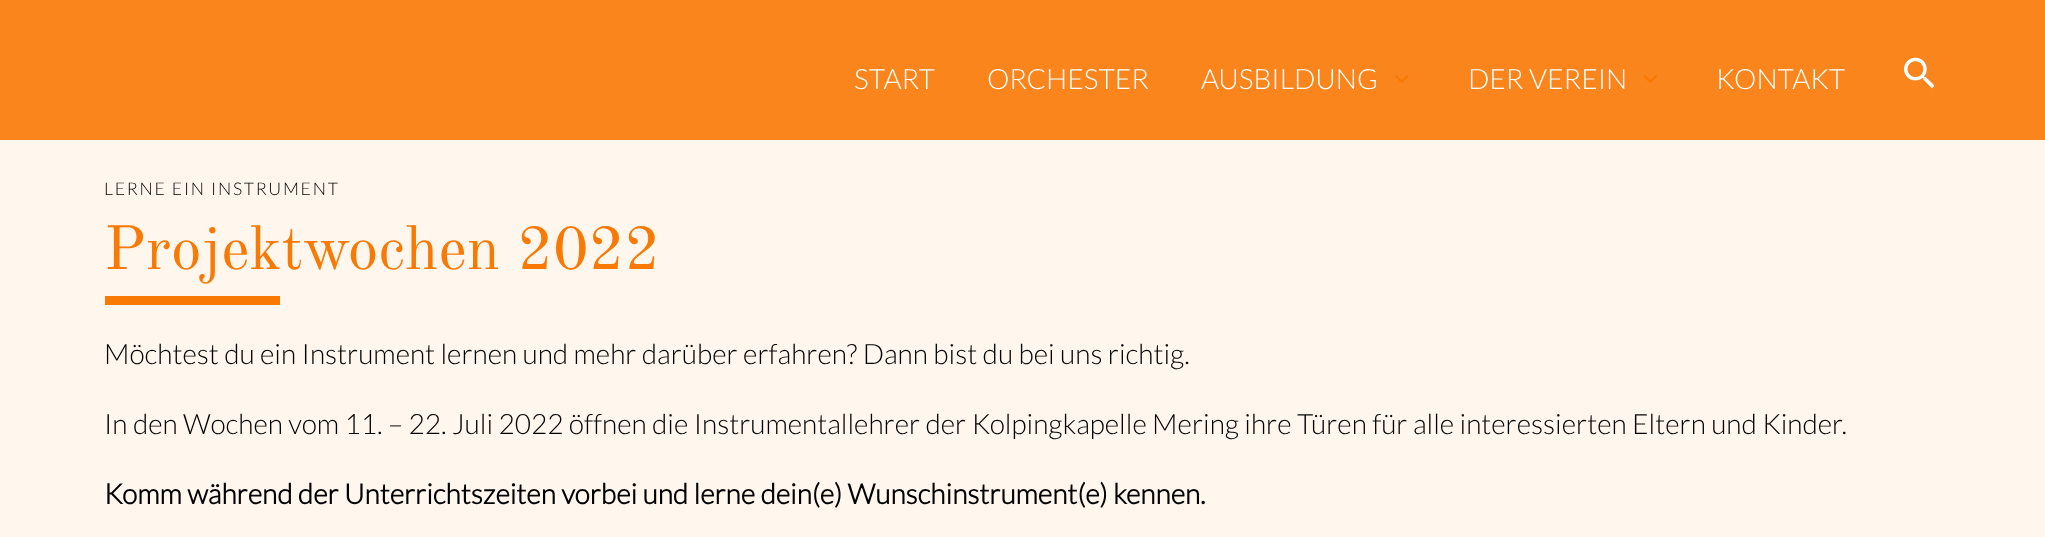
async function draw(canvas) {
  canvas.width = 2045;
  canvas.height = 537;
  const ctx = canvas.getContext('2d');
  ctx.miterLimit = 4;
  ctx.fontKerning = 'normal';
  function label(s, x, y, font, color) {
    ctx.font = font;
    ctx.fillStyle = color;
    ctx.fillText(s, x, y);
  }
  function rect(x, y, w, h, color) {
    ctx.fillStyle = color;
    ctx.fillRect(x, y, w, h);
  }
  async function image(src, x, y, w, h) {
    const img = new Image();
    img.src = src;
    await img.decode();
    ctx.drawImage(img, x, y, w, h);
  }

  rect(0, 0, 2045, 537, '#fff6ed');
  rect(0, 0, 2045, 140, '#f87904e6');
  label('START', 854, 89, '300 28px Lato', '#fff');
  label('ORCHESTER', 987, 89, '300 28px Lato', '#fff');
  label('AUSBILDUNG', 1201, 89, '300 28px Lato', '#fff');
  await image('assets/img1.png', 1395, 75, 14, 8);
  label('DER VEREIN', 1468, 89, '300 28px Lato', '#fff');
  await image('assets/img2.png', 1643, 75, 14, 8);
  label('KONTAKT', 1716, 89, '300 28px Lato', '#fff');
  await image('assets/img3.png', 1904, 57, 30, 32);
  ctx.letterSpacing = '1.75px';
  label('LERNE EIN INSTRUMENT', 104, 195, '300 17.5px Lato', '#000');
  ctx.letterSpacing = '0px';
  label('Projektwochen 2022', 104, 269, '61.5px Old Standard TT', '#f87904');
  rect(105, 296, 175, 9, '#f87904');
  label('Möchtest du ein Instrument lernen und mehr darüber erfahren? Dann bist du bei uns richtig.', 104, 364, '300 28px Lato', '#000');
  label('In den Wochen vom 11. – 22. Juli 2022 öffnen die Instrumentallehrer der Kolpingkapelle Mering ihre Türen für alle interessierten Eltern und Kinder.', 104, 434, '300 28px Lato', '#000');
  label('Komm während der Unterrichtszeiten vorbei und lerne dein(e) Wunschinstrument(e) kennen.', 104, 504, 'bold 28px Lato', '#000');
}

draw(document.querySelector('canvas'));
